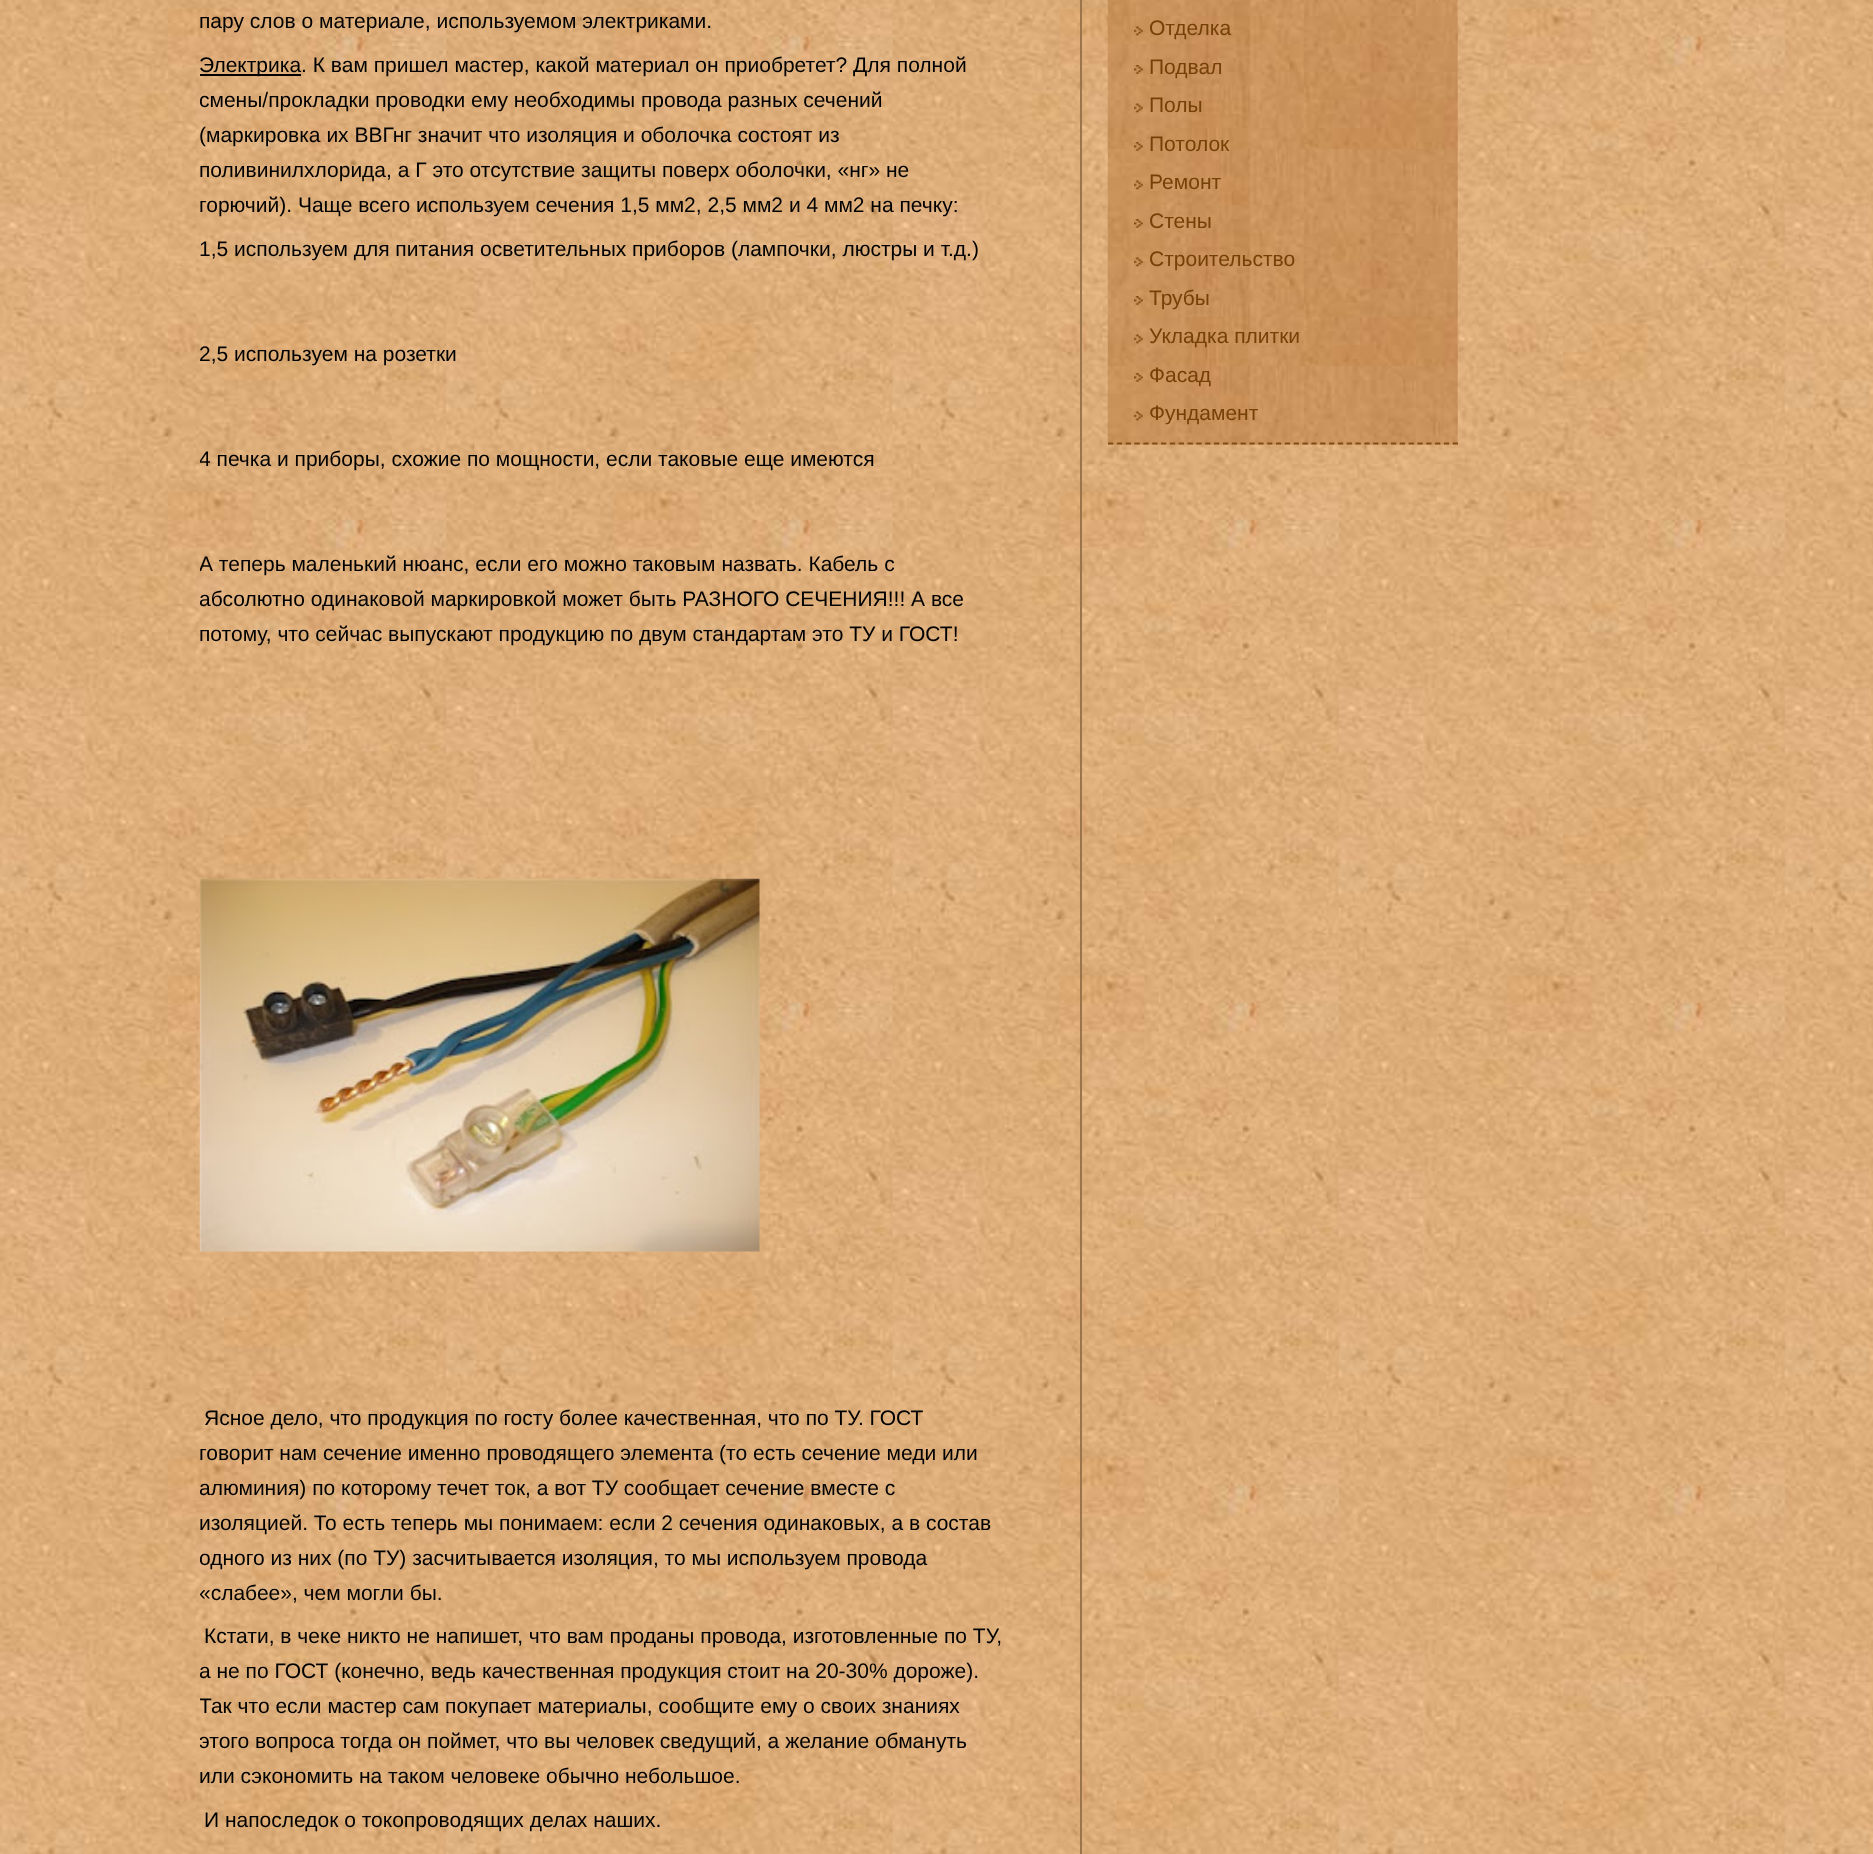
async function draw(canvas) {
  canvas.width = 1873;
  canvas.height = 1854;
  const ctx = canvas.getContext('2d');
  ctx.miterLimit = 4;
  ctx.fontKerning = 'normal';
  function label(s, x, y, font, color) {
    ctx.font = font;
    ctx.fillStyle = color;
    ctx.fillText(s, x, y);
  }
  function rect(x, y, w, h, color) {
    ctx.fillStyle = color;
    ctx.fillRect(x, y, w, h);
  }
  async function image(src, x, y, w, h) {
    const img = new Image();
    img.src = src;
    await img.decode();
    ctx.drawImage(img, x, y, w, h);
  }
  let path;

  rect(0, 0, 1873, 1854, '#fff');
  await image('assets/img1.png', 0, 0, 1873, 1854);
  rect(1080, 0, 2, 1854, '#9a744a');
  label('пару слов о материале, используемом электриками.', 199, 28, '21px Liberation Sans', '#000');
  rect(200, 74, 101, 2, '#000');
  label('Электрика. К вам пришел мастер, какой материал он приобретет? Для полной', 199, 72, '21px Liberation Sans', '#000');
  ctx.save();
  ctx.beginPath();
  ctx.rect(200, 0, 805, 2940);
  ctx.clip();
  label('смены/прокладки проводки ему необходимы провода разных сечений', 199, 107, '21px Liberation Sans', '#000');
  ctx.restore();
  label('(маркировка их ВВГнг значит что изоляция и оболочка состоят из', 199, 142, '21px Liberation Sans', '#000');
  label('поливинилхлорида, а Г это отсутствие защиты поверх оболочки, «нг» не', 199, 177, '21px Liberation Sans', '#000');
  label('горючий). Чаще всего используем сечения 1,5 мм2, 2,5 мм2 и 4 мм2 на печку:', 199, 212, '21px Liberation Sans', '#000');
  label('1,5 используем для питания осветительных приборов (лампочки, люстры и т.д.)', 199, 256, '21px Liberation Sans', '#000');
  ctx.save();
  ctx.beginPath();
  ctx.rect(200, 0, 805, 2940);
  ctx.clip();
  label('2,5 используем на розетки', 199, 361, '21px Liberation Sans', '#000');
  label('4 печка и приборы, схожие по мощности, если таковые еще имеются', 199, 466, '21px Liberation Sans', '#000');
  label('А теперь маленький нюанс, если его можно таковым назвать. Кабель с', 199, 571, '21px Liberation Sans', '#000');
  label('абсолютно одинаковой маркировкой может быть РАЗНОГО СЕЧЕНИЯ!!! А все', 199, 606, '21px Liberation Sans', '#000');
  ctx.restore();
  label('потому, что сейчас выпускают продукцию по двум стандартам это ТУ и ГОСТ!', 199, 641, '21px Liberation Sans', '#000');
  await image('assets/img2.png', 199, 878, 561, 374);
  label('Ясное дело, что продукция по госту более качественная, что по ТУ. ГОСТ', 204, 1425, '21px Liberation Sans', '#000');
  label('говорит нам сечение именно проводящего элемента (то есть сечение меди или', 199, 1460, '21px Liberation Sans', '#000');
  ctx.save();
  ctx.beginPath();
  ctx.rect(200, 0, 805, 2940);
  ctx.clip();
  label('алюминия) по которому течет ток, а вот ТУ сообщает сечение вместе с', 199, 1495, '21px Liberation Sans', '#000');
  ctx.restore();
  label('изоляцией. То есть теперь мы понимаем: если 2 сечения одинаковых, а в состав', 199, 1530, '21px Liberation Sans', '#000');
  ctx.save();
  ctx.beginPath();
  ctx.rect(200, 0, 805, 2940);
  ctx.clip();
  label('одного из них (по ТУ) засчитывается изоляция, то мы используем провода', 199, 1565, '21px Liberation Sans', '#000');
  label('«слабее», чем могли бы.', 199, 1600, '21px Liberation Sans', '#000');
  ctx.restore();
  label('Кстати, в чеке никто не напишет, что вам проданы провода, изготовленные по ТУ,', 204, 1643, '21px Liberation Sans', '#000');
  ctx.save();
  ctx.beginPath();
  ctx.rect(200, 0, 805, 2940);
  ctx.clip();
  label('а не по ГОСТ (конечно, ведь качественная продукция стоит на 20-30% дороже).', 199, 1678, '21px Liberation Sans', '#000');
  label('Так что если мастер сам покупает материалы, сообщите ему о своих знаниях', 199, 1713, '21px Liberation Sans', '#000');
  label('этого вопроса тогда он поймет, что вы человек сведущий, а желание обмануть', 199, 1748, '21px Liberation Sans', '#000');
  ctx.restore();
  label('или сэкономить на таком человеке обычно небольшое.', 199, 1783, '21px Liberation Sans', '#000');
  label('И напоследок о токопроводящих делах наших.', 204, 1827, '21px Liberation Sans', '#000');
  await image('assets/img3.png', 1107, 0, 351, 445);
  path = new Path2D('M1108 443.5H1458');
  ctx.strokeStyle = '#824e15';
  ctx.lineWidth = 1.8;
  ctx.setLineDash([5.25, 3.59]);
  ctx.stroke(path);
  await image('assets/img4.png', 1134, 26, 9, 10);
  label('Отделка', 1149, 35, '21px Liberation Sans', '#754108');
  await image('assets/img5.png', 1134, 65, 9, 9);
  label('Подвал', 1149, 74, '21px Liberation Sans', '#754108');
  await image('assets/img6.png', 1134, 103, 9, 10);
  label('Полы', 1149, 112, '21px Liberation Sans', '#754108');
  await image('assets/img7.png', 1134, 142, 9, 9);
  label('Потолок', 1149, 151, '21px Liberation Sans', '#754108');
  await image('assets/img8.png', 1134, 180, 9, 10);
  label('Ремонт', 1149, 189, '21px Liberation Sans', '#754108');
  await image('assets/img9.png', 1134, 219, 9, 9);
  label('Стены', 1149, 228, '21px Liberation Sans', '#754108');
  await image('assets/img10.png', 1134, 257, 9, 10);
  label('Строительство', 1149, 266, '21px Liberation Sans', '#754108');
  await image('assets/img11.png', 1134, 296, 9, 9);
  label('Трубы', 1149, 305, '21px Liberation Sans', '#754108');
  await image('assets/img12.png', 1134, 334, 9, 10);
  label('Укладка плитки', 1149, 343, '21px Liberation Sans', '#754108');
  await image('assets/img13.png', 1134, 373, 9, 9);
  label('Фасад', 1149, 382, '21px Liberation Sans', '#754108');
  await image('assets/img14.png', 1134, 411, 9, 10);
  label('Фундамент', 1149, 420, '21px Liberation Sans', '#754108');
}

draw(document.querySelector('canvas'));
